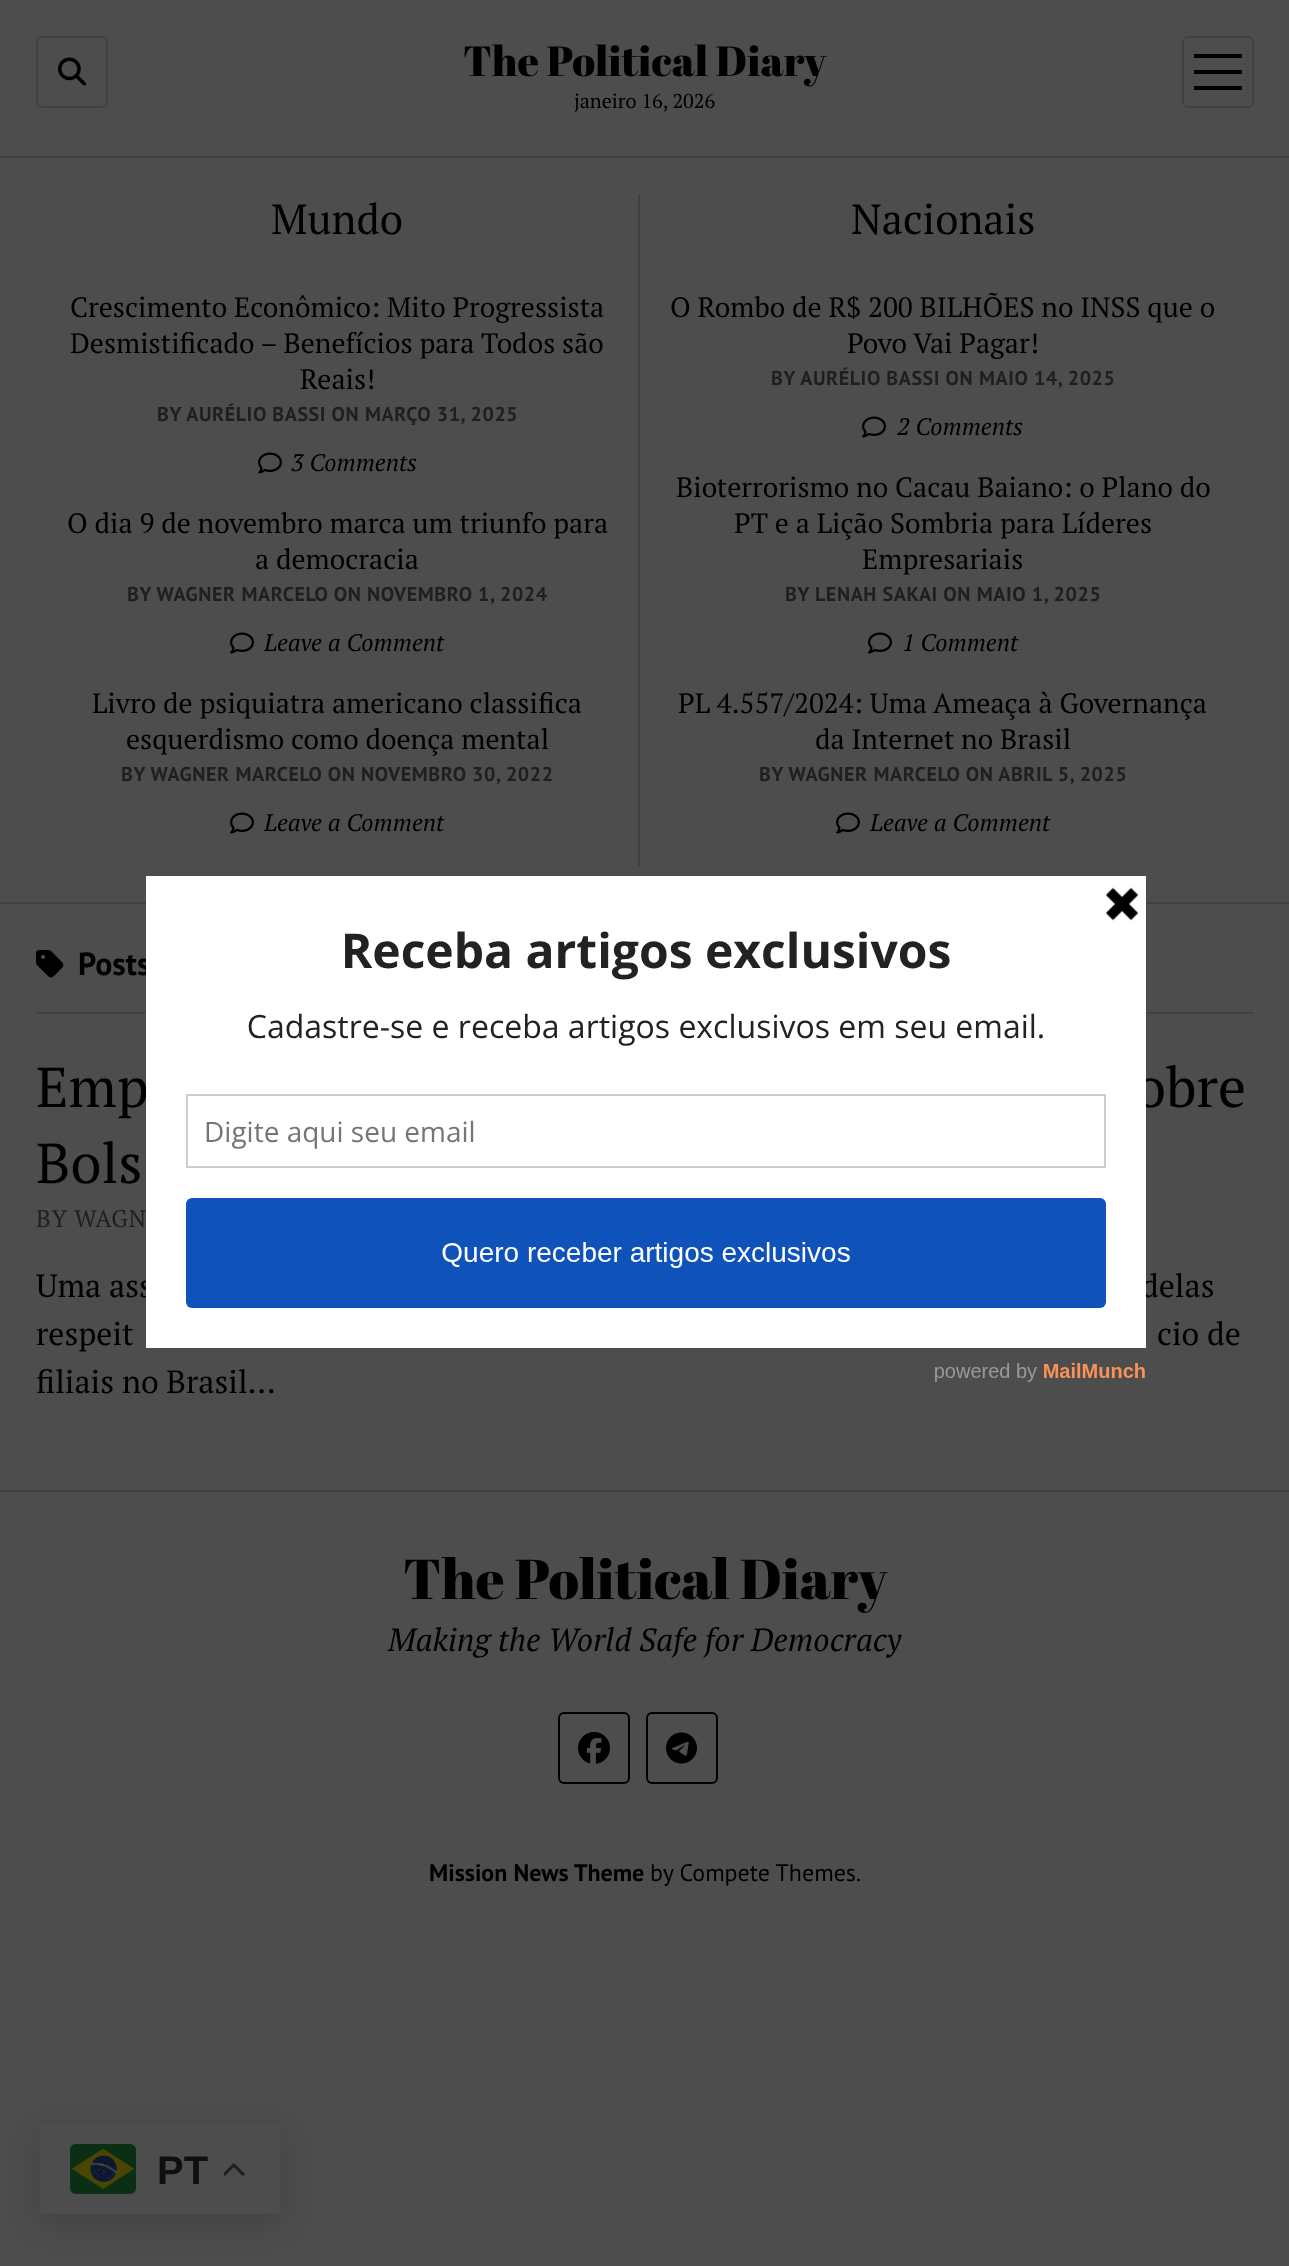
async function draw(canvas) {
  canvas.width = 1289;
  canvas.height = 2266;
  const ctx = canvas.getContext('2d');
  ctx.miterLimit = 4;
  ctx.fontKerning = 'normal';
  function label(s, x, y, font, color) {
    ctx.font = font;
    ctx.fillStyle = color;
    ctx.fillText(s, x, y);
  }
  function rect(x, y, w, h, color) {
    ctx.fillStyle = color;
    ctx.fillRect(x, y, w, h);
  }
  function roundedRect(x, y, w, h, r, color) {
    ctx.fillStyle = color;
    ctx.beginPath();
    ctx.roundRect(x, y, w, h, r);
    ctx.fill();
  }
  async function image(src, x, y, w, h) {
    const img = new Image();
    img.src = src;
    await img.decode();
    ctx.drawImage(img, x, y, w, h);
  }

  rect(0, 0, 1289, 2266, '#4d4d4d');
  rect(0, 156, 1289, 2, '#424242');
  ctx.beginPath();
  ctx.roundRect(37, 37, 70, 70, 5);
  ctx.strokeStyle = '#424242';
  ctx.lineWidth = 2;
  ctx.stroke();
  await image('assets/img1.png', 58, 57, 28, 29);
  label('The Political Diary', 463, 76, '42px Abril Fatface', '#000');
  label('janeiro 16, 2026', 574, 108, '20px PT Serif', '#000');
  ctx.beginPath();
  ctx.roundRect(1183, 37, 70, 70, 5);
  ctx.stroke();
  rect(1194, 54, 48, 4, '#000');
  rect(1194, 70, 48, 4, '#000');
  rect(1194, 86, 48, 4, '#000');
  rect(0, 902, 1289, 2, '#424242');
  rect(638, 194, 2, 672, '#424242');
  label('Mundo', 271, 234, '42px PT Serif', '#000');
  label('Crescimento Econômico: Mito Progressista', 70, 317, '28px PT Serif', '#000');
  label('Desmistificado – Benefícios para Todos são', 70, 353, '28px PT Serif', '#000');
  label('Reais!', 300, 389, '28px PT Serif', '#000');
  ctx.letterSpacing = '0.6px';
  label('BY AURÉLIO BASSI ON MARÇO 31, 2025', 157, 421, 'bold 20px PT Sans', '#1f1f1f');
  await image('assets/img2.png', 258, 452, 24, 22);
  ctx.letterSpacing = '0px';
  label('3 Comments', 291, 471, 'italic 24px PT Serif', '#000');
  label('O dia 9 de novembro marca um triunfo para', 67, 533, '28px PT Serif', '#000');
  label('a democracia', 255, 569, '28px PT Serif', '#000');
  ctx.letterSpacing = '0.6px';
  label('BY WAGNER MARCELO ON NOVEMBRO 1, 2024', 127, 601, 'bold 20px PT Sans', '#1f1f1f');
  await image('assets/img2.png', 230, 632, 24, 22);
  ctx.letterSpacing = '0px';
  label('Leave a Comment', 264, 651, 'italic 24px PT Serif', '#000');
  label('Livro de psiquiatra americano classifica', 92, 713, '28px PT Serif', '#000');
  label('esquerdismo como doença mental', 126, 749, '28px PT Serif', '#000');
  ctx.letterSpacing = '0.6px';
  label('BY WAGNER MARCELO ON NOVEMBRO 30, 2022', 121, 781, 'bold 20px PT Sans', '#1f1f1f');
  await image('assets/img2.png', 230, 812, 24, 22);
  ctx.letterSpacing = '0px';
  label('Leave a Comment', 264, 831, 'italic 24px PT Serif', '#000');
  label('Nacionais', 851, 234, '42px PT Serif', '#000');
  label('O Rombo de R$ 200 BILHÕES no INSS que o', 670, 317, '28px PT Serif', '#000');
  label('Povo Vai Pagar!', 847, 353, '28px PT Serif', '#000');
  ctx.letterSpacing = '0.6px';
  label('BY AURÉLIO BASSI ON MAIO 14, 2025', 771, 385, 'bold 20px PT Sans', '#1f1f1f');
  await image('assets/img2.png', 862, 416, 24, 22);
  ctx.letterSpacing = '0px';
  label('2 Comments', 897, 435, 'italic 24px PT Serif', '#000');
  label('Bioterrorismo no Cacau Baiano: o Plano do', 676, 497, '28px PT Serif', '#000');
  label('PT e a Lição Sombria para Líderes', 734, 533, '28px PT Serif', '#000');
  label('Empresariais', 862, 569, '28px PT Serif', '#000');
  ctx.letterSpacing = '0.6px';
  label('BY LENAH SAKAI ON MAIO 1, 2025', 785, 601, 'bold 20px PT Sans', '#1f1f1f');
  await image('assets/img2.png', 868, 632, 24, 22);
  ctx.letterSpacing = '0px';
  label('1 Comment', 902, 651, 'italic 24px PT Serif', '#000');
  label('PL 4.557/2024: Uma Ameaça à Governança', 678, 713, '28px PT Serif', '#000');
  label('da Internet no Brasil', 815, 749, '28px PT Serif', '#000');
  ctx.letterSpacing = '0.6px';
  label('BY WAGNER MARCELO ON ABRIL 5, 2025', 759, 781, 'bold 20px PT Sans', '#1f1f1f');
  await image('assets/img2.png', 836, 812, 24, 22);
  ctx.letterSpacing = '0px';
  label('Leave a Comment', 870, 831, 'italic 24px PT Serif', '#000');
  rect(36, 1012, 1218, 2, '#424242');
  await image('assets/img3.png', 36, 950, 28, 28);
  label('Posts', 78, 975, 'bold 32px PT Sans', '#000');
  label('Emp', 36, 1107, '56px PT Serif', '#000');
  label('obre', 1135, 1107, '56px PT Serif', '#000');
  label('Bols', 36, 1183, '56px PT Serif', '#000');
  ctx.letterSpacing = '0.75px';
  label('BY WAGN', 36, 1227, '24px PT Serif', '#1f1f1f');
  ctx.letterSpacing = '0px';
  label('Uma ass', 36, 1297, '32px PT Serif', '#000');
  label('delas', 1141, 1297, '32px PT Serif', '#000');
  label('respeit', 36, 1345, '32px PT Serif', '#000');
  label('cio de', 1157, 1345, '32px PT Serif', '#000');
  label('filiais no Brasil…', 36, 1393, '32px PT Serif', '#000');
  rect(0, 1490, 1289, 2, '#424242');
  label('The Political Diary', 403, 1599, '56px Abril Fatface', '#000');
  label('Making the World Safe for Democracy', 388, 1651, 'italic 32px PT Serif', '#000');
  ctx.beginPath();
  ctx.roundRect(559, 1713, 70, 70, 5);
  ctx.strokeStyle = '#000';
  ctx.stroke();
  await image('assets/img4.png', 578, 1732, 32, 32);
  ctx.beginPath();
  ctx.roundRect(647, 1713, 70, 70, 5);
  ctx.stroke();
  await image('assets/img5.png', 666, 1732, 31, 32);
  label('Mission News Theme', 429, 1881, 'bold 24px PT Sans', '#000');
  label('by Compete Themes.', 650, 1881, '24px PT Sans', '#000');
  await image('assets/img6.png', 146, 876, 1000, 506);
  ctx.fillStyle = '#00000026';
  ctx.filter = 'blur(15px)';
  ctx.beginPath();
  ctx.roundRect(40, 2134, 240, 90, 4);
  ctx.fill();
  ctx.filter = 'none';
  roundedRect(40, 2124, 240, 90, 4, '#4d4d4d');
  await image('assets/img7.png', 70, 2144, 66, 50);
  label('PT', 157, 2184, 'bold 40px Liberation Sans', '#0f0f0f');
  await image('assets/img8.png', 224, 2163, 21, 13);
}

draw(document.querySelector('canvas'));
